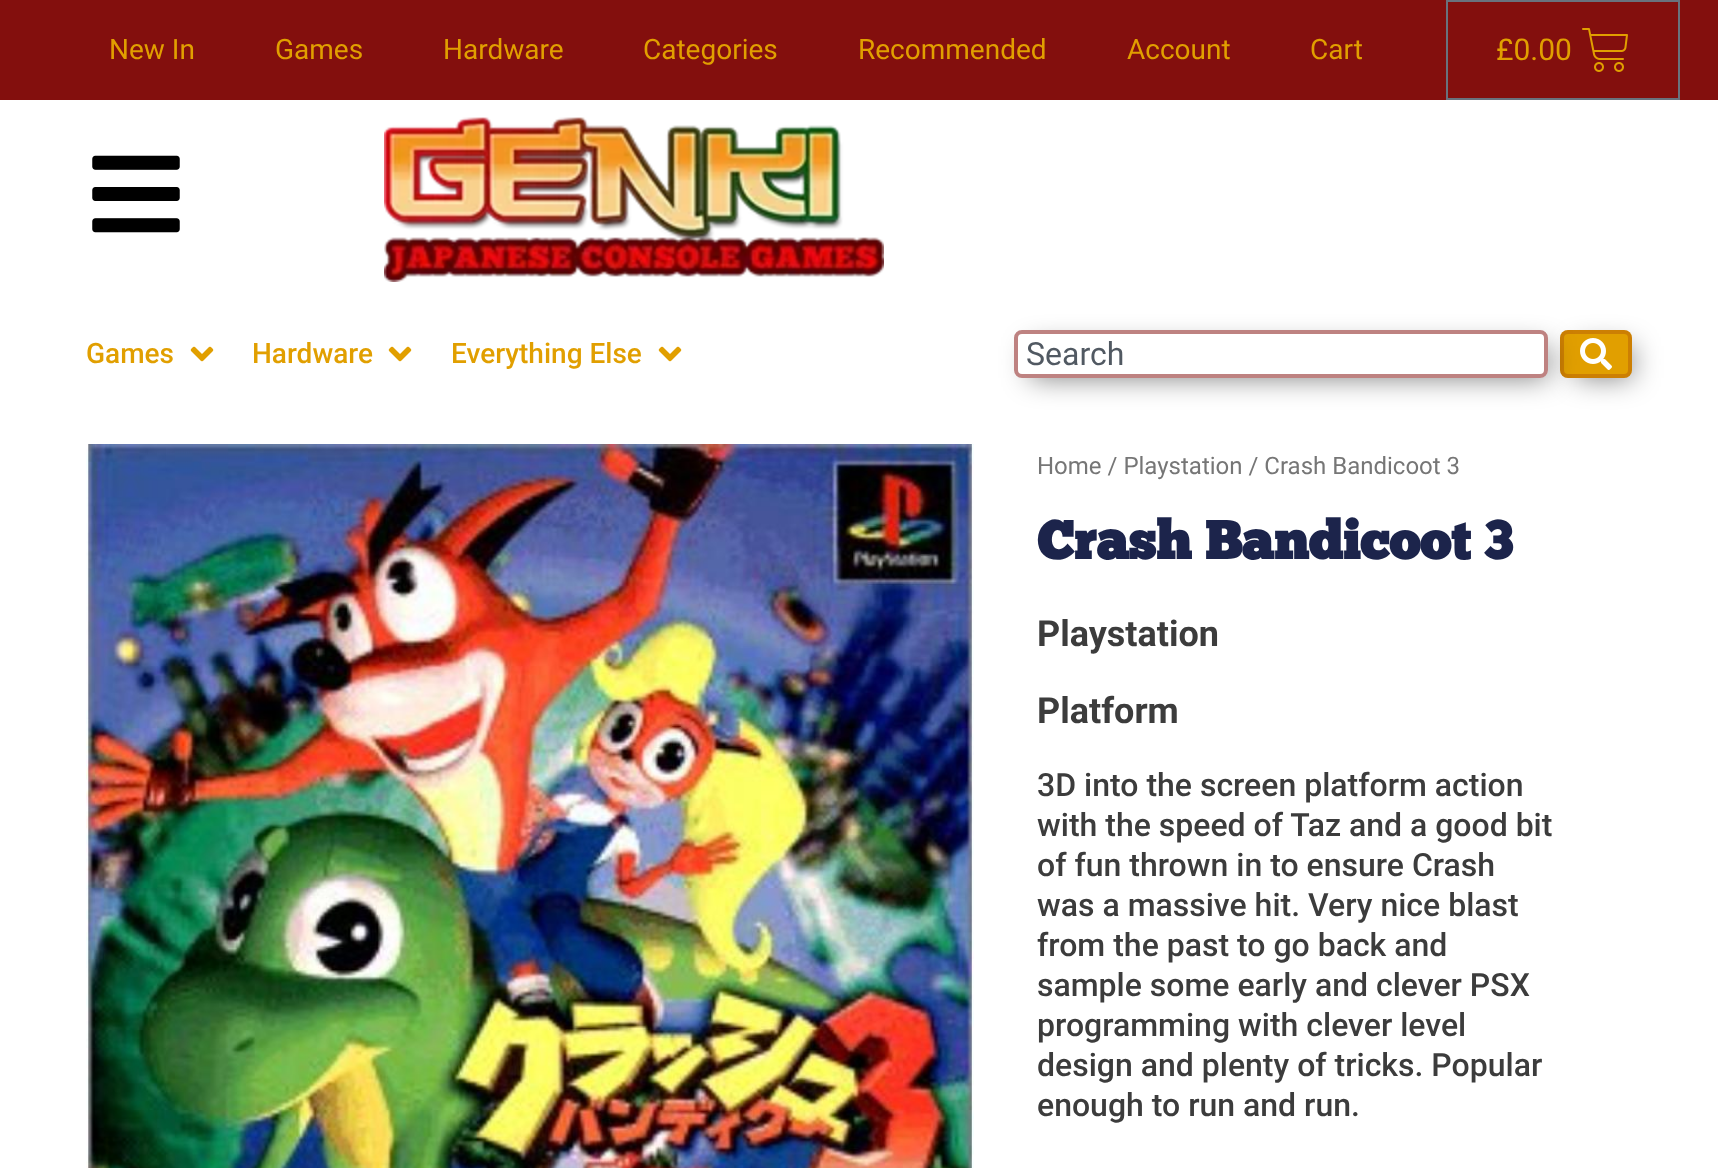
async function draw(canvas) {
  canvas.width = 1718;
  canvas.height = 1168;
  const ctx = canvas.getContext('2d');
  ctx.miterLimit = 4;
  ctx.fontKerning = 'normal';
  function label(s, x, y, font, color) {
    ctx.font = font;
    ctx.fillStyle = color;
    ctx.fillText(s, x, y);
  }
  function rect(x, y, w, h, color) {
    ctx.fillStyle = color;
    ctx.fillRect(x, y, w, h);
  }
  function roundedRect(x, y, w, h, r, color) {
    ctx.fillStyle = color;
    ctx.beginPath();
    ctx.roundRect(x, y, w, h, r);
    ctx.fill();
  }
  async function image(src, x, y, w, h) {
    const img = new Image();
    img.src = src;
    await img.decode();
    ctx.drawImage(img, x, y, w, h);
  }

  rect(0, 0, 1718, 1168, '#fff');
  rect(0, 0, 1718, 100, '#830f0d');
  label('New In', 109, 59, '28px Roboto', '#e19f00');
  label('Games', 275, 59, '28px Roboto', '#e19f00');
  label('Hardware', 443, 59, '28px Roboto', '#e19f00');
  label('Categories', 643, 59, '28px Roboto', '#e19f00');
  label('Recommended', 858, 59, '28px Roboto', '#e19f00');
  label('Account', 1127, 59, '28px Roboto', '#e19f00');
  label('Cart', 1310, 59, '28px Roboto', '#e19f00');
  ctx.strokeStyle = '#69727d';
  ctx.lineWidth = 2;
  ctx.strokeRect(1447, 1, 232, 98);
  label('£0.00', 1496, 60, '30px Roboto', '#e19f00');
  await image('assets/img1.png', 1582, 28, 46, 44);
  await image('assets/img2.png', 92, 155, 88, 78);
  await image('assets/img3.png', 384, 117, 500, 165);
  label('Games', 86, 363, '500 28px Roboto', '#e19f00');
  await image('assets/img4.png', 190, 346, 24, 16);
  label('Hardware', 252, 363, '500 28px Roboto', '#e19f00');
  await image('assets/img4.png', 388, 346, 24, 16);
  label('Everything Else', 451, 363, '500 28px Roboto', '#e19f00');
  await image('assets/img4.png', 658, 346, 24, 16);
  ctx.fillStyle = '#00000080';
  ctx.filter = 'blur(14px)';
  ctx.beginPath();
  ctx.rect(1576, 346, 56, 32);
  ctx.fill();
  ctx.filter = 'none';
  roundedRect(1560, 330, 72, 48, 8, '#e19f00');
  ctx.beginPath();
  ctx.roundRect(1562, 332, 68, 44, 6);
  ctx.strokeStyle = '#830f0d38';
  ctx.lineWidth = 4;
  ctx.stroke();
  await image('assets/img5.png', 1580, 338, 32, 32);
  ctx.fillStyle = '#00000080';
  ctx.filter = 'blur(14px)';
  ctx.beginPath();
  ctx.rect(1030, 346, 518, 32);
  ctx.fill();
  ctx.filter = 'none';
  roundedRect(1014, 330, 534, 48, 8, '#fff');
  ctx.beginPath();
  ctx.roundRect(1016, 332, 530, 44, 6);
  ctx.strokeStyle = '#830f0d85';
  ctx.stroke();
  label('Search', 1026, 365, '32px Roboto', '#515962');
  await image('assets/img6.png', 86, 444, 888, 724);
  label('Home / Playstation / Crash Bandicoot 3', 1037, 474, '24px Roboto', '#767676');
  label('Crash Bandicoot 3', 1037, 559, 'bold 53.75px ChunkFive', '#1c244b');
  label('Playstation', 1037, 646, 'bold 36px Roboto', '#3c3c3c');
  label('Platform', 1037, 723, 'bold 36px Roboto', '#3c3c3c');
  label('3D into the screen platform action', 1037, 796, '500 32px Roboto', '#3c3c3c');
  label('with the speed of Taz and a good bit', 1037, 836, '500 32px Roboto', '#3c3c3c');
  label('of fun thrown in to ensure Crash', 1037, 876, '500 32px Roboto', '#3c3c3c');
  label('was a massive hit. Very nice blast', 1037, 916, '500 32px Roboto', '#3c3c3c');
  label('from the past to go back and', 1037, 956, '500 32px Roboto', '#3c3c3c');
  label('sample some early and clever PSX', 1037, 996, '500 32px Roboto', '#3c3c3c');
  label('programming with clever level', 1037, 1036, '500 32px Roboto', '#3c3c3c');
  label('design and plenty of tricks. Popular', 1037, 1076, '500 32px Roboto', '#3c3c3c');
  label('enough to run and run.', 1037, 1116, '500 32px Roboto', '#3c3c3c');
}

draw(document.querySelector('canvas'));
